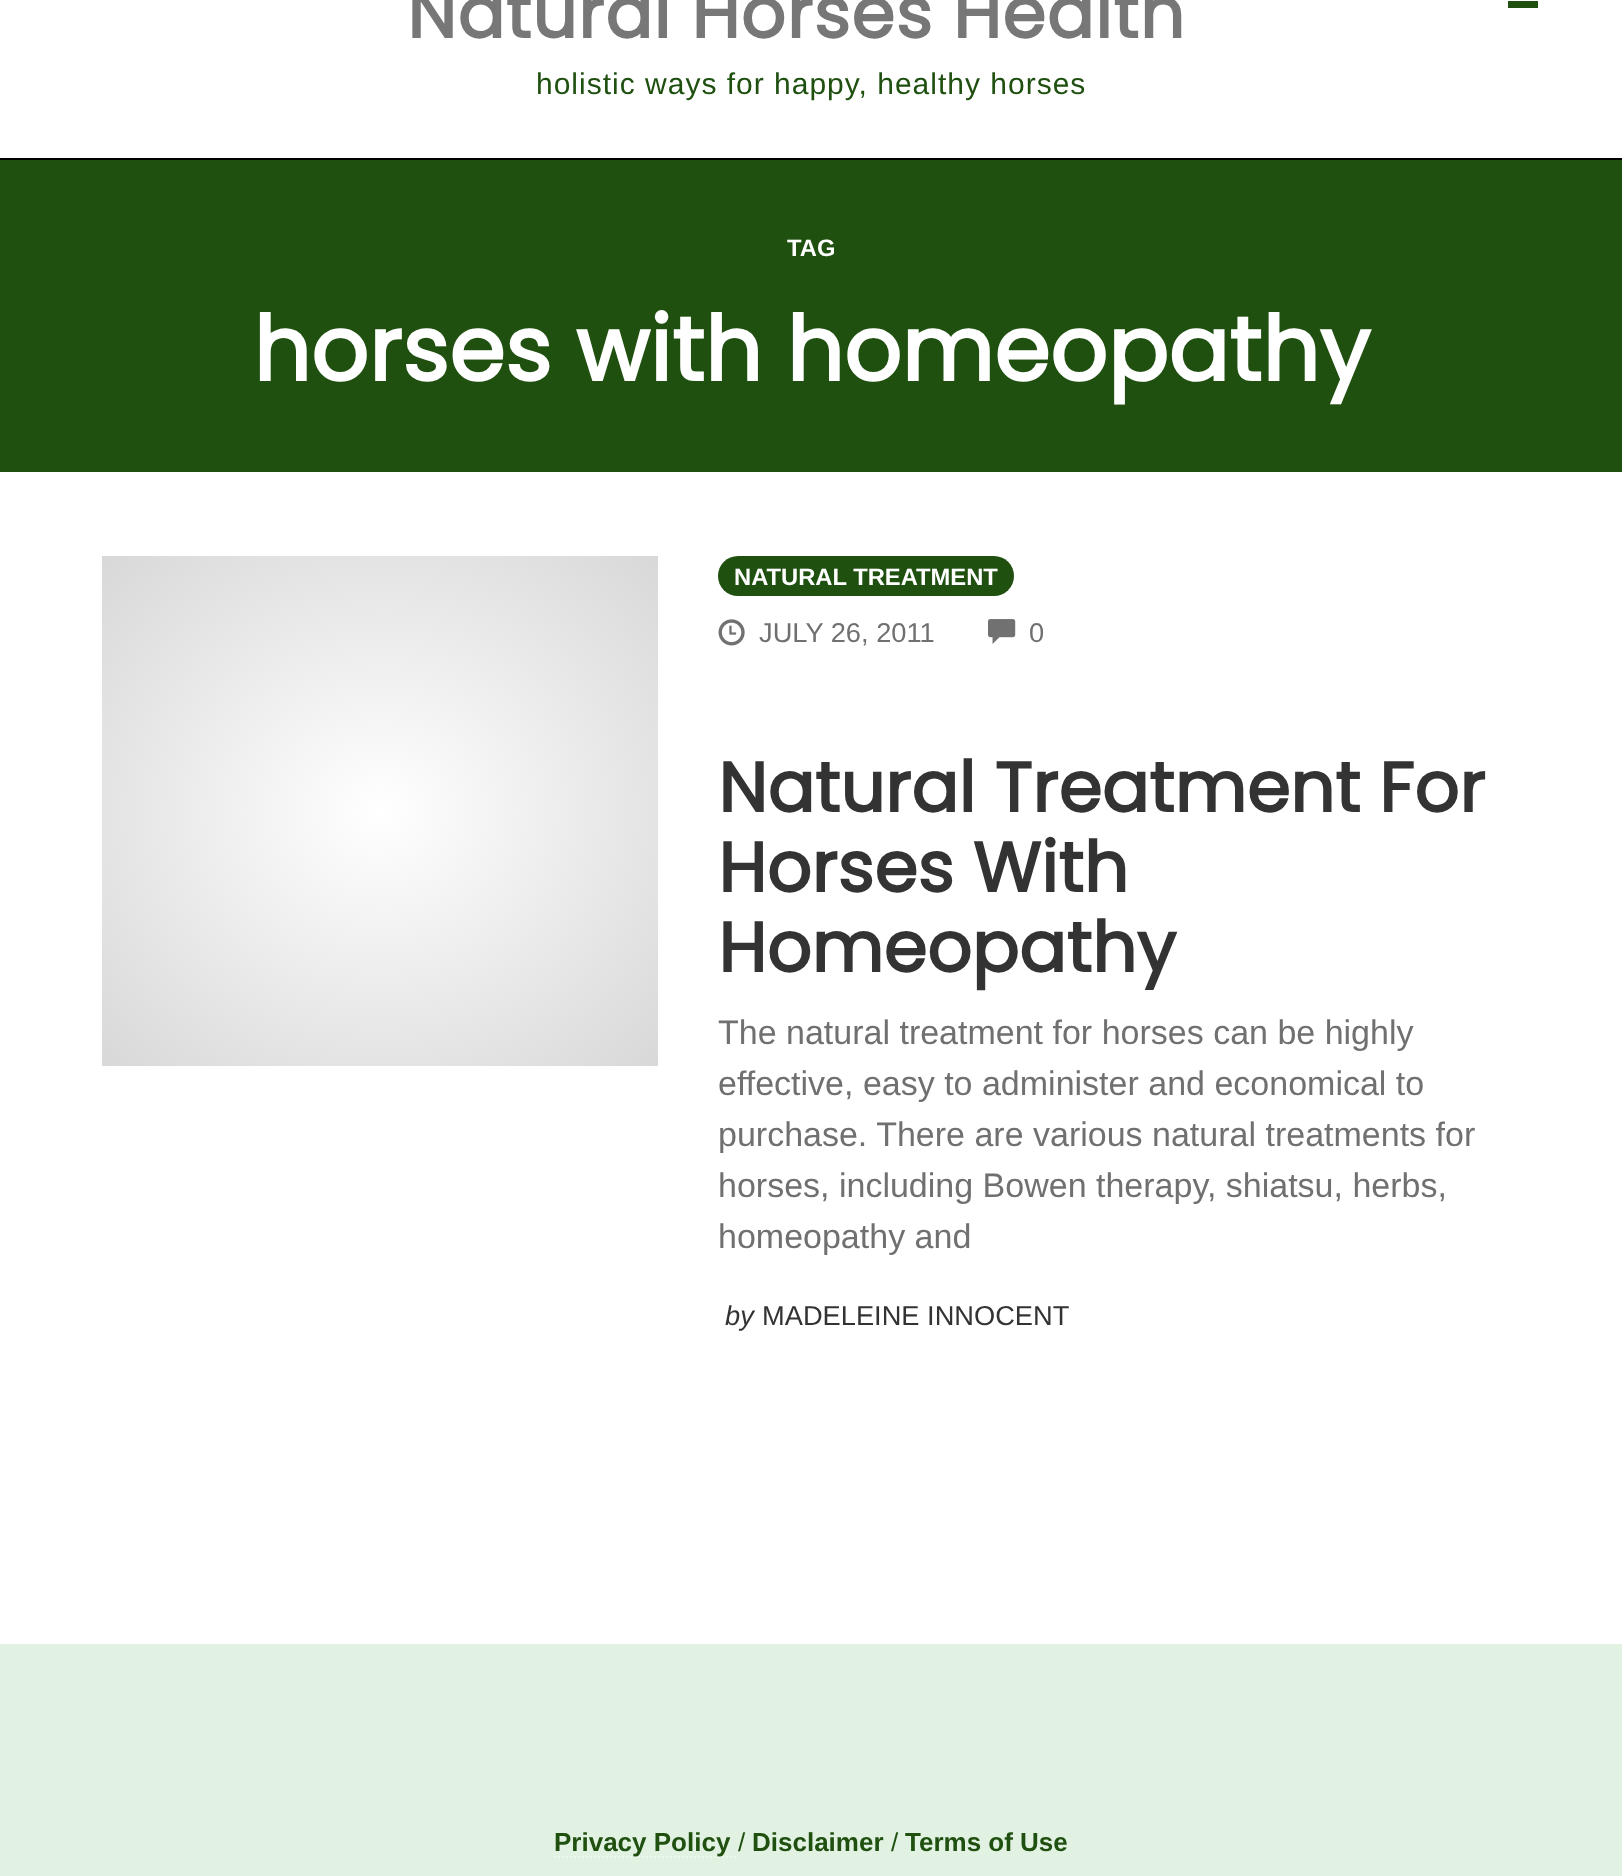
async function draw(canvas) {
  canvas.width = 1622;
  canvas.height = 1876;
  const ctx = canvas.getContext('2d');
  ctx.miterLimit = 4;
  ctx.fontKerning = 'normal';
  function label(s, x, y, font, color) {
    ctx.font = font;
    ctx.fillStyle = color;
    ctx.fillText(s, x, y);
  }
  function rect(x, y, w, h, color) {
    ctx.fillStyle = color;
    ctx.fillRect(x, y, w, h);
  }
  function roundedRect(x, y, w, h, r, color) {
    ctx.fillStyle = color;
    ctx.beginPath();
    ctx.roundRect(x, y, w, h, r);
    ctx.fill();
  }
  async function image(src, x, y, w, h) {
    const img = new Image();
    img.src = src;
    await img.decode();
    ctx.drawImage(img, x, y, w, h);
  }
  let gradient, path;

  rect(0, 0, 1622, 1876, '#fff');
  rect(0, 158, 1622, 2, '#000');
  ctx.letterSpacing = '1px';
  label('Natural Horses Health', 407, 38, 'bold 70px Poppins', '#777');
  rect(1508, 1, 30, 7, '#1f5010');
  label('holistic ways for happy, healthy horses', 536, 94, '30px Liberation Sans', '#1f5010');
  rect(0, 160, 1622, 312, '#1f5010');
  ctx.letterSpacing = '0px';
  label('TAG', 787, 256, 'bold 23.75px Liberation Sans', '#fff');
  label('horses with homeopathy', 253, 381, 'bold 90px Poppins', '#fff');
  gradient = ctx.createRadialGradient(380, 882.89, 0, 380, 882.89, 393);
  gradient.addColorStop(0, '#fff');
  gradient.addColorStop(1, '#d8d8d8');
  ctx.fillStyle = gradient;
  ctx.beginPath();
  ctx.rect(102, 556, 556, 510);
  ctx.save();
  ctx.clip();
  ctx.scale(1, 361 / 393);
  ctx.fillRect(0, 0, 1622, 2043);
  ctx.restore();
  roundedRect(718, 556, 296, 40, 20, '#1f5010');
  label('NATURAL TREATMENT', 734, 585, 'bold 23.75px Liberation Sans', '#fff');
  await image('assets/img1.png', 718, 619, 27, 27);
  label('JULY 26, 2011', 759, 642, '27.25px Liberation Sans', '#707070');
  await image('assets/img2.png', 988, 619, 28, 25);
  label('0', 1029, 642, '27.25px Liberation Sans', '#707070');
  label('Natural Treatment For', 718, 812, 'bold 70px Poppins', '#333');
  label('Horses With', 718, 892, 'bold 70px Poppins', '#333');
  label('Homeopathy', 718, 972, 'bold 70px Poppins', '#333');
  label('The natural treatment for horses can be highly', 718, 1044, '34px Liberation Sans', '#707070');
  label('effective, easy to administer and economical to', 718, 1095, '34px Liberation Sans', '#707070');
  label('purchase. There are various natural treatments for', 718, 1146, '34px Liberation Sans', '#707070');
  label('horses, including Bowen therapy, shiatsu, herbs,', 718, 1197, '34px Liberation Sans', '#707070');
  label('homeopathy and', 718, 1248, '34px Liberation Sans', '#707070');
  label('by', 725, 1325, 'italic 27.25px Liberation Sans', '#333');
  label('MADELEINE INNOCENT', 762, 1325, '27.25px Liberation Sans', '#333');
  rect(0, 1644, 1622, 232, '#e1f2e3');
  path = new Path2D('M554 1857H730');
  ctx.strokeStyle = '#edf7ee';
  ctx.lineWidth = 2;
  ctx.setLineDash([2, 2]);
  ctx.stroke(path);
  path = new Path2D('M730 1857H732M734 1857H736');
  ctx.setLineDash([]);
  ctx.stroke(path);
  label('Privacy Policy', 554, 1851, 'bold 26px Liberation Sans', '#1f5010');
  label('/', 738, 1851, '26px Liberation Sans', '#1f5010');
  label('Disclaimer', 752, 1851, 'bold 26px Liberation Sans', '#1f5010');
  label('/', 891, 1851, '26px Liberation Sans', '#1f5010');
  label('Terms of Use', 905, 1851, 'bold 26px Liberation Sans', '#1f5010');
}

draw(document.querySelector('canvas'));
